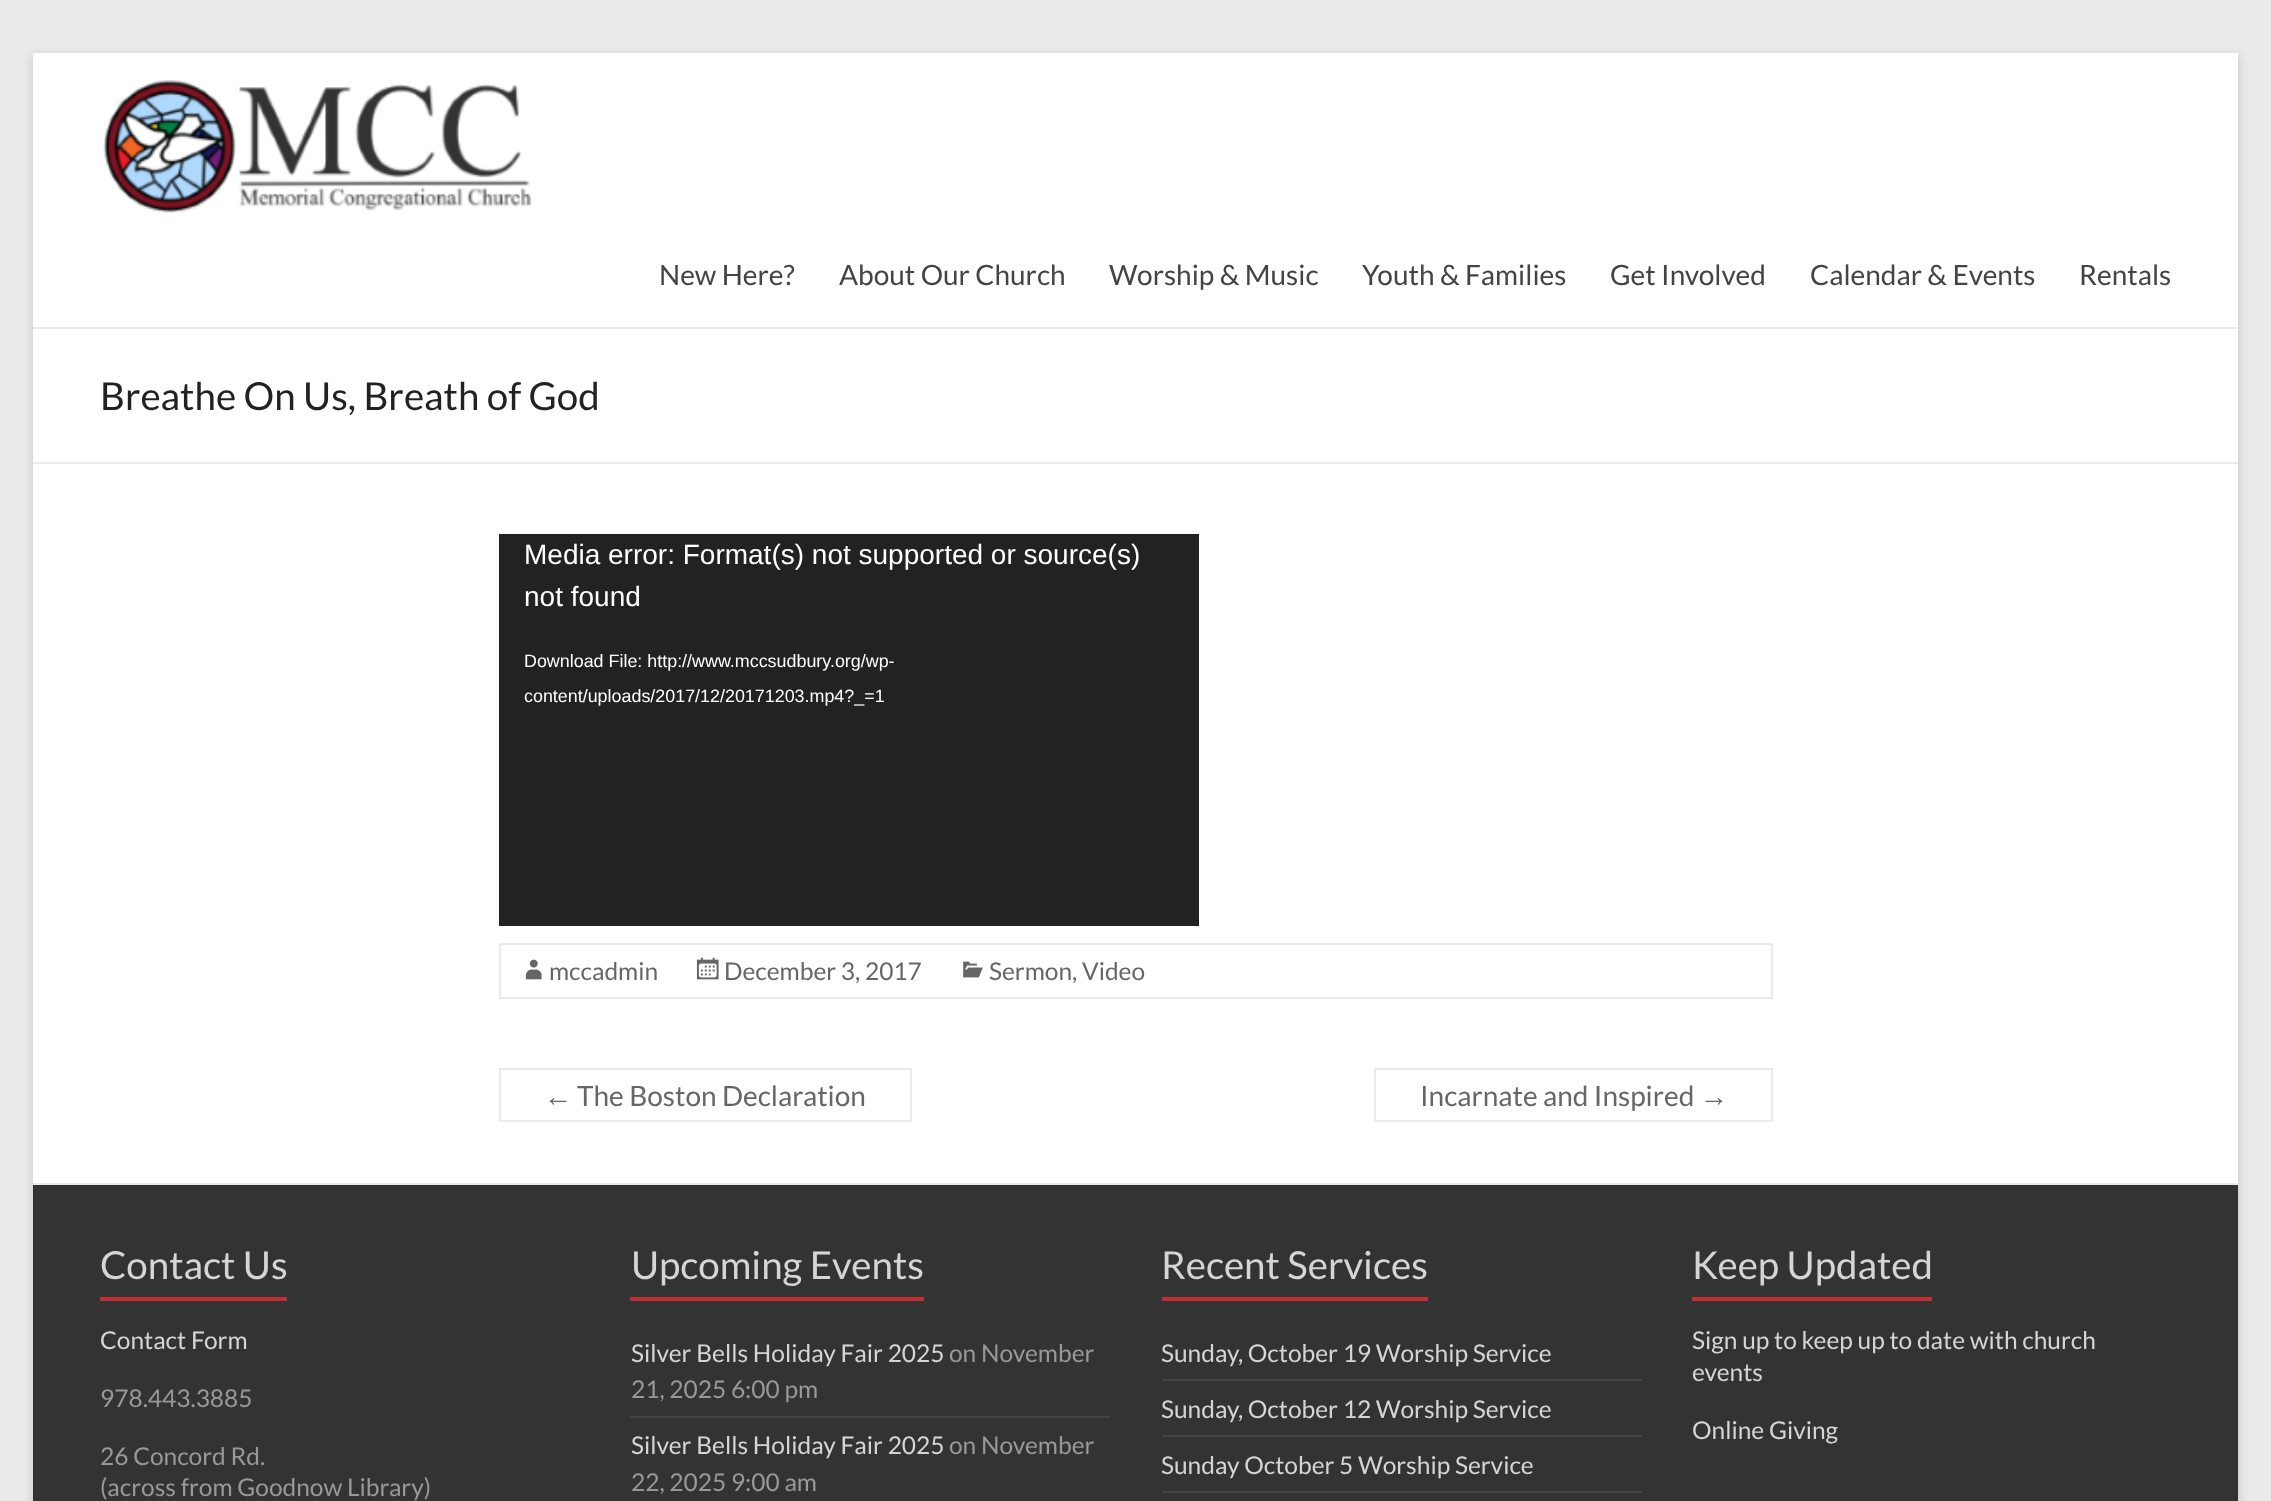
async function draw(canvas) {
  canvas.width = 2271;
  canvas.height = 1501;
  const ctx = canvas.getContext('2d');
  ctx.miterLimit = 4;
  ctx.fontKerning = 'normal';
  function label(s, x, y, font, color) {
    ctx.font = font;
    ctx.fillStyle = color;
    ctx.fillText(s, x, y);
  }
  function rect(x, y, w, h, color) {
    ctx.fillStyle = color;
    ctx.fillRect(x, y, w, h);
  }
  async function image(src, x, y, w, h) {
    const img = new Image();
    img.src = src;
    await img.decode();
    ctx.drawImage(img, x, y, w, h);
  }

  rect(0, 0, 2271, 1501, '#eaeaea');
  ctx.fillStyle = '#6464644d';
  ctx.filter = 'blur(5px)';
  ctx.beginPath();
  ctx.rect(33, 56, 2205, 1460);
  ctx.fill();
  ctx.filter = 'none';
  rect(33, 53, 2205, 1130, '#fff');
  rect(33, 327, 2205, 2, '#eaeaea');
  await image('assets/img1.png', 103, 80, 429, 133);
  label('New Here?', 659, 285, '28px Lato', '#444');
  label('About Our Church', 839, 285, '28px Lato', '#444');
  label('Worship & Music', 1109, 285, '28px Lato', '#444');
  label('Youth & Families', 1362, 285, '28px Lato', '#444');
  label('Get Involved', 1610, 285, '28px Lato', '#444');
  label('Calendar & Events', 1810, 285, '28px Lato', '#444');
  label('Rentals', 2079, 285, '28px Lato', '#444');
  rect(33, 462, 2205, 2, '#eaeaea');
  label('Breathe On Us, Breath of God', 100, 410, '38.5px Lato', '#222');
  rect(499, 534, 700, 392, '#222');
  label('Media error: Format(s) not supported or source(s)', 524, 564, '28px Liberation Sans', '#fff');
  label('not found', 524, 606, '28px Liberation Sans', '#fff');
  label('Download File: http://www.mccsudbury.org/wp-', 524, 667, '17.9px Liberation Sans', '#fff');
  label('content/uploads/2017/12/20171203.mp4?_=1', 524, 702, '17.9px Liberation Sans', '#fff');
  ctx.strokeStyle = '#eaeaea';
  ctx.lineWidth = 2;
  ctx.strokeRect(500, 944, 1272, 54);
  await image('assets/img2.png', 525, 959, 17, 21);
  label('mccadmin', 549, 980, '24.5px Lato', '#666');
  await image('assets/img3.png', 696, 957, 23, 23);
  label('December 3, 2017', 724, 980, '24.5px Lato', '#666');
  await image('assets/img4.png', 963, 961, 20, 17);
  label('Sermon, Video', 989, 980, '24.5px Lato', '#666');
  label('←', 544, 1106, '28px Liberation Sans', '#666');
  rect(499, 1120, 73, 2, '#eaeaea');
  rect(499, 1068, 413, 2, '#eaeaea');
  rect(499, 1068, 2, 54, '#eaeaea');
  rect(910, 1068, 2, 54, '#eaeaea');
  rect(572, 1120, 340, 2, '#eaeaea');
  label('The Boston Declaration', 577, 1106, '28px Lato', '#666');
  label('Incarnate and Inspired', 1420, 1106, '28px Lato', '#666');
  rect(1374, 1068, 399, 2, '#eaeaea');
  rect(1374, 1120, 325, 2, '#eaeaea');
  rect(1374, 1068, 2, 54, '#eaeaea');
  label('→', 1700, 1106, '28px Liberation Sans', '#666');
  rect(1771, 1068, 2, 54, '#eaeaea');
  rect(1699, 1120, 74, 2, '#eaeaea');
  rect(33, 1185, 2205, 316, '#333');
  rect(33, 1183, 2205, 2, '#eaeaea');
  label('Contact Us', 100, 1279, '38.5px Lato', '#d5d5d5');
  rect(100, 1297, 187, 4, '#c12e33');
  label('Contact Form', 100, 1349, '24.5px Lato', '#d5d5d5');
  label('978.443.3885', 100, 1407, '24.5px Lato', '#999');
  label('26 Concord Rd.', 100, 1465, '24.5px Lato', '#999');
  label('(across from Goodnow Library)', 100, 1496, '24.5px Lato', '#999');
  label('Upcoming Events', 631, 1279, '38.5px Lato', '#d5d5d5');
  rect(630, 1297, 294, 4, '#c12e33');
  rect(630, 1416, 480, 2, '#444');
  label('Silver Bells Holiday Fair 2025', 631, 1362, '24.5px Lato', '#d5d5d5');
  label('on November', 949, 1362, '24.5px Lato', '#999');
  label('21, 2025 6:00 pm', 631, 1398, '24.5px Lato', '#999');
  label('Silver Bells Holiday Fair 2025', 631, 1454, '24.5px Lato', '#d5d5d5');
  label('on November', 949, 1454, '24.5px Lato', '#999');
  label('22, 2025 9:00 am', 631, 1491, '24.5px Lato', '#999');
  label('Recent Services', 1161, 1279, '38.5px Lato', '#d5d5d5');
  rect(1162, 1297, 266, 4, '#c12e33');
  rect(1162, 1379, 480, 2, '#444');
  label('Sunday, October 19 Worship Service', 1161, 1362, '24.5px Lato', '#d5d5d5');
  rect(1162, 1435, 480, 2, '#444');
  label('Sunday, October 12 Worship Service', 1161, 1418, '24.5px Lato', '#d5d5d5');
  rect(1162, 1491, 480, 2, '#444');
  label('Sunday October 5 Worship Service', 1161, 1474, '24.5px Lato', '#d5d5d5');
  label('Keep Updated', 1692, 1279, '38.5px Lato', '#d5d5d5');
  rect(1692, 1297, 240, 4, '#c12e33');
  label('Sign up to keep up to date with church', 1692, 1349, '24.5px Lato', '#d5d5d5');
  label('events', 1692, 1381, '24.5px Lato', '#d5d5d5');
  label('Online Giving', 1692, 1439, '24.5px Lato', '#d5d5d5');
}

draw(document.querySelector('canvas'));
